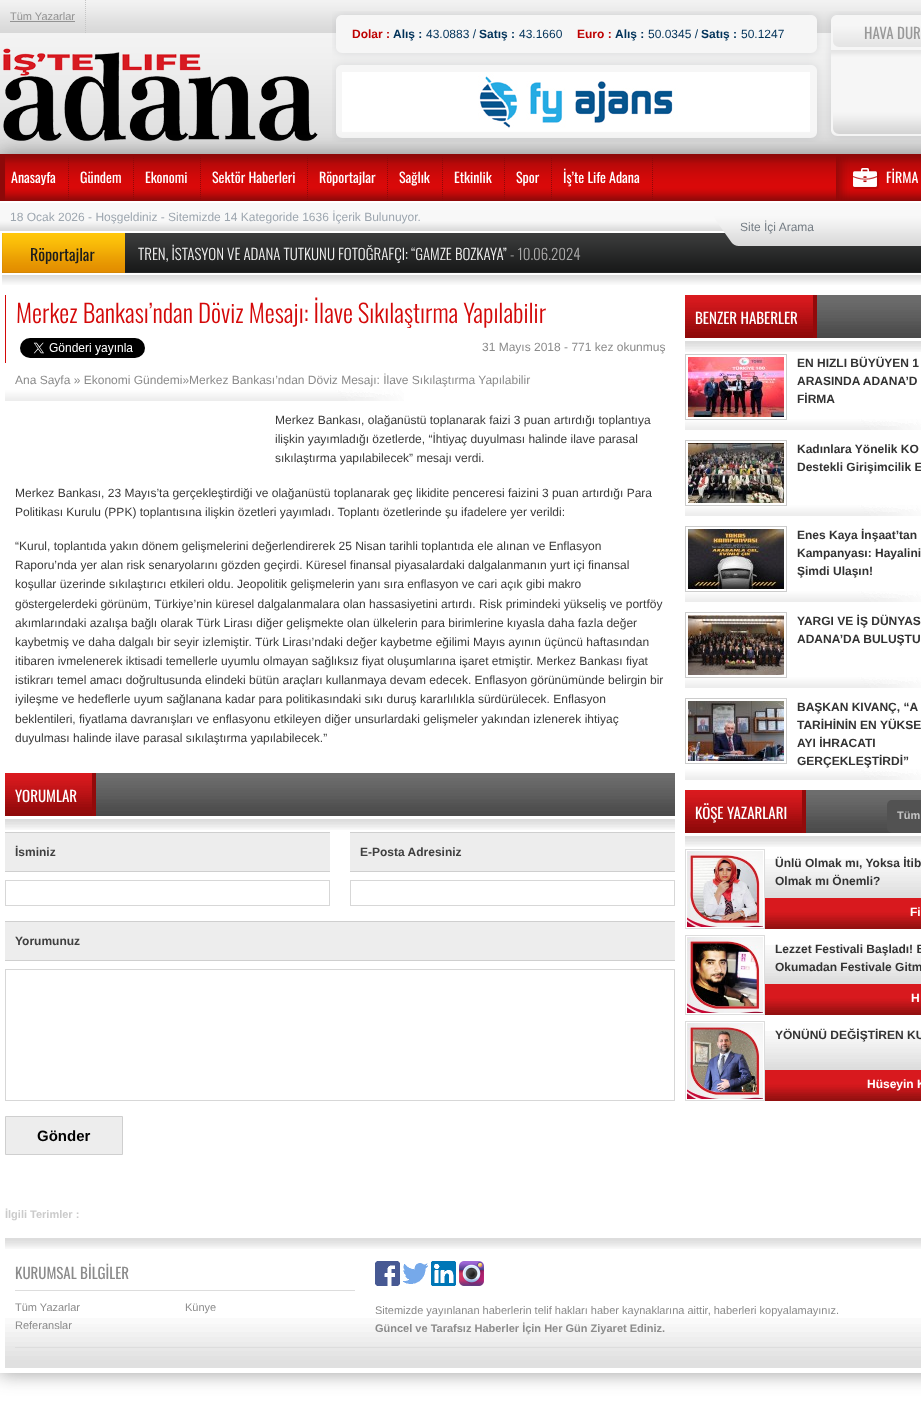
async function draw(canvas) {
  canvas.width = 921;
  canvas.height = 1424;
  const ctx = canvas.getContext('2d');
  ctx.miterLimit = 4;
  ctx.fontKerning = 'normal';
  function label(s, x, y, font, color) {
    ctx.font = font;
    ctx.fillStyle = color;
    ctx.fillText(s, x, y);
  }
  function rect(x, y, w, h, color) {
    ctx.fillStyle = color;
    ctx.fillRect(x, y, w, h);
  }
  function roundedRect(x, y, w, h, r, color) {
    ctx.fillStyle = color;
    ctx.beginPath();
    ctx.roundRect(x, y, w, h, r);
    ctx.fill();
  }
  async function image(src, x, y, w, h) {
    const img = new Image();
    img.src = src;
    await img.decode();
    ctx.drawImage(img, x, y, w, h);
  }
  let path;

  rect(0, 0, 921, 1424, '#fff');
  await image('assets/img1.png', 0, 0, 921, 154);
  await image('assets/img2.png', 332, 11, 589, 131);
  path = new Path2D('M85.5 0V33');
  ctx.strokeStyle = '#c6c6c6';
  ctx.setLineDash([1, 1]);
  ctx.stroke(path);
  label('Tüm Yazarlar', 10, 20, '11px Liberation Sans', '#939393');
  rect(10, 21, 65, 1, '#939393');
  await image('assets/img3.png', 3, 48, 315, 93);
  label('Dolar :', 352, 38, 'bold 12px Liberation Sans', '#be0101');
  label('Alış :', 393, 38, 'bold 12px Liberation Sans', '#003259');
  label('43.0883 /', 426, 38, '12px Liberation Sans', '#003259');
  label('Satış :', 479, 38, 'bold 12px Liberation Sans', '#003259');
  label('43.1660', 519, 38, '12px Liberation Sans', '#003259');
  label('Euro :', 577, 38, 'bold 12px Liberation Sans', '#be0101');
  label('Alış :', 615, 38, 'bold 12px Liberation Sans', '#003259');
  label('50.0345 /', 648, 38, '12px Liberation Sans', '#003259');
  label('Satış :', 701, 38, 'bold 12px Liberation Sans', '#003259');
  label('50.1247', 741, 38, '12px Liberation Sans', '#003259');
  await image('assets/img4.png', 342, 72, 468, 60);
  label('HAVA DUR', 864, 39, '15px Oswald', '#999');
  ctx.fillStyle = '#32323273';
  ctx.filter = 'blur(9.5px)';
  ctx.beginPath();
  ctx.rect(-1, 153, 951, 1221);
  ctx.fill();
  ctx.filter = 'none';
  rect(0, 201, 921, 1172, '#fff');
  await image('assets/img5.png', 0, 154, 921, 131);
  path = new Path2D('M68.5 154V201');
  ctx.strokeStyle = '#8d0909';
  ctx.stroke(path);
  label('Anasayfa', 11, 183, '14px Oswald', '#fff');
  path = new Path2D('M133.5 154V201');
  ctx.stroke(path);
  label('Gündem', 80, 183, '14px Oswald', '#fff');
  path = new Path2D('M200.5 154V201');
  ctx.stroke(path);
  label('Ekonomi', 145, 183, '14px Oswald', '#fff');
  path = new Path2D('M307.5 154V201');
  ctx.stroke(path);
  label('Sektör Haberleri', 212, 183, '14px Oswald', '#fff');
  path = new Path2D('M387.5 154V201');
  ctx.stroke(path);
  label('Röportajlar', 319, 183, '14px Oswald', '#fff');
  path = new Path2D('M442.5 154V201');
  ctx.stroke(path);
  label('Sağlık', 399, 183, '14px Oswald', '#fff');
  path = new Path2D('M504.5 154V201');
  ctx.stroke(path);
  label('Etkinlik', 454, 183, '14px Oswald', '#fff');
  path = new Path2D('M551.5 154V201');
  ctx.stroke(path);
  label('Spor', 516, 183, '14px Oswald', '#fff');
  path = new Path2D('M652.5 154V201');
  ctx.stroke(path);
  label('İş’te Life Adana', 563, 183, '14px Oswald', '#fff');
  await image('assets/img6.png', 836, 156, 43, 44);
  label('FİRMA', 886, 183, '14px Oswald', '#fff');
  label('18 Ocak 2026 - Hoşgeldiniz - Sitemizde 14 Kategoride 1636 İçerik Bulunuyor.', 10, 221, '12px Liberation Sans', '#9da6af');
  label('Site İçi Arama', 740, 231, '12px Liberation Sans', '#747c84');
  label('Röportajlar', 30, 261, '16px Oswald', '#1c1d1d');
  label('TREN, İSTASYON VE ADANA TUTKUNU FOTOĞRAFÇI: “GAMZE BOZKAYA”', 138, 260, '300 15px Oswald', '#f3f3f3');
  label('- 10.06.2024', 510, 260, '300 15px Oswald', '#acabab');
  rect(5, 295, 1, 68, '#d40909');
  label('Merkez Bankası’ndan Döviz Mesajı: İlave Sıkılaştırma Yapılabilir', 16, 323, '300 25px Oswald', '#d40909');
  await image('assets/img7.png', 20, 338, 125, 20);
  label('31 Mayıs 2018 - 771 kez okunmuş', 482, 351, '12px Liberation Sans', '#8b8b8b');
  await image('assets/img8.png', 5, 390, 399, 11);
  label('Ana Sayfa » Ekonomi Gündemi»Merkez Bankası’ndan Döviz Mesajı: İlave Sıkılaştırma Yapılabilir', 15, 384, '12px Liberation Sans', '#8b8b8b');
  label('Merkez Bankası, olağanüstü toplanarak faizi 3 puan artırdığı toplantıya', 275, 424, '12px Liberation Sans', '#3a3a3a');
  label('ilişkin yayımladığı özetlerde, “İhtiyaç duyulması halinde ilave parasal', 275, 443, '12px Liberation Sans', '#3a3a3a');
  label('sıkılaştırma yapılabilecek” mesajı verdi.', 275, 462, '12px Liberation Sans', '#3a3a3a');
  label('Merkez Bankası, 23 Mayıs’ta gerçekleştirdiği ve olağanüstü toplanarak geç likidite penceresi faizini 3 puan artırdığı Para', 15, 497, '12px Liberation Sans', '#3a3a3a');
  label('Politikası Kurulu (PPK) toplantısına ilişkin özetleri yayımladı. Toplantı özetlerinde şu ifadelere yer verildi:', 15, 516, '12px Liberation Sans', '#3a3a3a');
  label('“Kurul, toplantıda yakın dönem gelişmelerini değerlendirerek 25 Nisan tarihli toplantıda ele alınan ve Enflasyon', 15, 550, '12px Liberation Sans', '#3a3a3a');
  label('Raporu’nda yer alan risk senaryolarını gözden geçirdi. Küresel finansal piyasalardaki dalgalanmanın yurt içi finansal', 15, 569, '12px Liberation Sans', '#3a3a3a');
  label('koşullar üzerinde sıkılaştırıcı etkileri oldu. Jeopolitik gelişmelerin yanı sıra enflasyon ve cari açık gibi makro', 15, 588, '12px Liberation Sans', '#3a3a3a');
  label('göstergelerdeki görünüm, Türkiye’nin küresel dalgalanmalara olan hassasiyetini artırdı. Risk primindeki yükseliş ve portföy', 15, 608, '12px Liberation Sans', '#3a3a3a');
  label('akımlarındaki azalışa bağlı olarak Türk Lirası diğer gelişmekte olan ülkelerin para birimlerine kıyasla daha fazla değer', 15, 627, '12px Liberation Sans', '#3a3a3a');
  label('kaybetmiş ve daha dalgalı bir seyir izlemiştir. Türk Lirası’ndaki değer kaybetme eğilimi Mayıs ayının üçüncü haftasından', 15, 646, '12px Liberation Sans', '#3a3a3a');
  label('itibaren ivmelenerek iktisadi temellerle uyumlu olmayan sağlıksız fiyat oluşumlarına işaret etmiştir. Merkez Bankası fiyat', 15, 665, '12px Liberation Sans', '#3a3a3a');
  label('istikrarı temel amacı doğrultusunda elindeki bütün araçları kullanmaya devam edecek. Enflasyon görünümünde belirgin bir', 15, 684, '12px Liberation Sans', '#3a3a3a');
  label('iyileşme ve hedeflerle uyum sağlanana kadar para politikasındaki sıkı duruş kararlılıkla sürdürülecek. Enflasyon', 15, 703, '12px Liberation Sans', '#3a3a3a');
  label('beklentileri, fiyatlama davranışları ve enflasyonu etkileyen diğer unsurlardaki gelişmeler yakından izlenerek ihtiyaç', 15, 723, '12px Liberation Sans', '#3a3a3a');
  label('duyulması halinde ilave parasal sıkılaştırma yapılabilecek.”', 15, 742, '12px Liberation Sans', '#3a3a3a');
  await image('assets/img9.png', 5, 773, 670, 57);
  await image('assets/img10.png', 5, 773, 87, 43);
  rect(92, 773, 4, 43, '#920a0a');
  label('YORUMLAR', 15, 802, '15px Oswald', '#fff');
  rect(5, 833, 325, 38, '#ededed');
  rect(5, 832, 325, 1, '#cfcfcf');
  rect(5, 871, 325, 1, '#cfcfcf');
  label('İsminiz', 15, 856, 'bold 12px Liberation Sans', '#404040');
  ctx.strokeStyle = '#d7d7d7';
  ctx.setLineDash([]);
  ctx.strokeRect(5.5, 880.5, 324, 25);
  rect(350, 833, 325, 38, '#ededed');
  rect(350, 832, 325, 1, '#cfcfcf');
  rect(350, 871, 325, 1, '#cfcfcf');
  label('E-Posta Adresiniz', 360, 856, 'bold 12px Liberation Sans', '#404040');
  ctx.strokeRect(350.5, 880.5, 324, 25);
  rect(5, 922, 670, 38, '#ededed');
  rect(5, 921, 670, 1, '#cfcfcf');
  rect(5, 960, 670, 1, '#cfcfcf');
  label('Yorumunuz', 15, 945, 'bold 12px Liberation Sans', '#404040');
  ctx.strokeRect(5.5, 969.5, 669, 131);
  ctx.fillStyle = '#ededed';
  ctx.beginPath();
  ctx.rect(5.5, 1116.5, 117, 38);
  ctx.fill();
  ctx.strokeStyle = '#cfcfcf';
  ctx.stroke();
  label('Gönder', 37, 1141, 'bold 15px Liberation Sans', '#000');
  label('İlgili Terimler :', 5, 1218, 'bold 11px Liberation Sans', '#cbcbcb');
  await image('assets/img11.png', 685, 295, 236, 57);
  await image('assets/img12.png', 685, 295, 128, 43);
  rect(813, 295, 4, 43, '#920a0a');
  label('BENZER HABERLER', 695, 324, '15px Oswald', '#fff');
  await image('assets/img13.png', 685, 419, 236, 11);
  ctx.strokeStyle = '#ccc';
  ctx.strokeRect(685.5, 354.5, 101, 65);
  await image('assets/img14.png', 688, 357, 96, 60);
  label('EN HIZLI BÜYÜYEN 1', 797, 367, 'bold 12px Liberation Sans', '#333');
  label('ARASINDA ADANA’D', 797, 385, 'bold 12px Liberation Sans', '#333');
  label('FİRMA', 797, 403, 'bold 12px Liberation Sans', '#333');
  await image('assets/img13.png', 685, 505, 236, 11);
  ctx.strokeRect(685.5, 440.5, 101, 65);
  await image('assets/img15.png', 688, 443, 96, 60);
  label('Kadınlara Yönelik KO', 797, 453, 'bold 12px Liberation Sans', '#333');
  label('Destekli Girişimcilik E', 797, 471, 'bold 12px Liberation Sans', '#333');
  await image('assets/img13.png', 685, 591, 236, 11);
  ctx.strokeRect(685.5, 526.5, 101, 65);
  await image('assets/img16.png', 688, 529, 96, 60);
  label('Enes Kaya İnşaat’tan', 797, 539, 'bold 12px Liberation Sans', '#333');
  label('Kampanyası: Hayalini', 797, 557, 'bold 12px Liberation Sans', '#333');
  label('Şimdi Ulaşın!', 797, 575, 'bold 12px Liberation Sans', '#333');
  await image('assets/img13.png', 685, 677, 236, 11);
  ctx.strokeRect(685.5, 612.5, 101, 65);
  await image('assets/img17.png', 688, 615, 96, 60);
  label('YARGI VE İŞ DÜNYAS', 797, 625, 'bold 12px Liberation Sans', '#333');
  label('ADANA’DA BULUŞTU', 797, 643, 'bold 12px Liberation Sans', '#333');
  await image('assets/img13.png', 685, 769, 236, 11);
  ctx.strokeRect(685.5, 698.5, 101, 65);
  await image('assets/img18.png', 688, 701, 96, 60);
  label('BAŞKAN KIVANÇ, “A', 797, 711, 'bold 12px Liberation Sans', '#333');
  label('TARİHİNİN EN YÜKSE', 797, 729, 'bold 12px Liberation Sans', '#333');
  label('AYI İHRACATI', 797, 747, 'bold 12px Liberation Sans', '#333');
  label('GERÇEKLEŞTİRDİ”', 797, 765, 'bold 12px Liberation Sans', '#333');
  await image('assets/img11.png', 685, 790, 236, 57);
  await image('assets/img19.png', 685, 790, 117, 43);
  rect(802, 790, 4, 43, '#920a0a');
  label('KÖŞE YAZARLARI', 695, 819, '15px Oswald', '#fff');
  roundedRect(887, 800, 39, 33, 5, '#525252');
  label('Tüm', 897, 819, 'bold 11px Liberation Sans', '#c4c4c4');
  await image('assets/img20.png', 765, 859, 156, 70);
  ctx.strokeStyle = '#dcdcdc';
  ctx.strokeRect(685.5, 849.5, 79, 79);
  await image('assets/img21.png', 687, 851, 76, 76);
  label('Ünlü Olmak mı, Yoksa İtib', 775, 867, 'bold 12px Liberation Sans', '#333');
  label('Olmak mı Önemli?', 775, 885, 'bold 12px Liberation Sans', '#333');
  label('Fi', 910, 916, 'bold 12px Liberation Sans', '#fff');
  await image('assets/img20.png', 765, 945, 156, 70);
  ctx.strokeRect(685.5, 935.5, 79, 79);
  await image('assets/img22.png', 687, 937, 76, 76);
  label('Lezzet Festivali Başladı! B', 775, 953, 'bold 12px Liberation Sans', '#333');
  label('Okumadan Festivale Gitm', 775, 971, 'bold 12px Liberation Sans', '#333');
  label('H', 911, 1002, 'bold 12px Liberation Sans', '#fff');
  await image('assets/img20.png', 765, 1031, 156, 70);
  ctx.strokeRect(685.5, 1021.5, 79, 79);
  await image('assets/img23.png', 687, 1023, 76, 76);
  label('YÖNÜNÜ DEĞİŞTİREN KU', 775, 1039, 'bold 12px Liberation Sans', '#333');
  label('Hüseyin K', 867, 1088, 'bold 12px Liberation Sans', '#fff');
  await image('assets/img24.png', 5, 1238, 916, 11);
  await image('assets/img25.png', 5, 1318, 916, 50);
  rect(15, 1290, 340, 1, '#ddd');
  label('KURUMSAL BİLGİLER', 15, 1279, '15px Oswald', '#8b8b8b');
  label('Tüm Yazarlar', 15, 1311, '11px Liberation Sans', '#8b8b8b');
  label('Künye', 185, 1311, '11px Liberation Sans', '#8b8b8b');
  label('Referanslar', 15, 1329, '11px Liberation Sans', '#8b8b8b');
  await image('assets/img26.png', 375, 1261, 25, 25);
  await image('assets/img27.png', 403, 1263, 25, 21);
  await image('assets/img28.png', 431, 1261, 25, 25);
  await image('assets/img29.png', 459, 1261, 25, 25);
  label('Sitemizde yayınlanan haberlerin telif hakları haber kaynaklarına aittir, haberleri kopyalamayınız.', 375, 1314, '11px Liberation Sans', '#8b8b8b');
  label('Güncel ve Tarafsız Haberler İçin Her Gün Ziyaret Ediniz.', 375, 1332, 'bold 11px Liberation Sans', '#8b8b8b');
  rect(15, 1347, 906, 1, '#ddd');
}

draw(document.querySelector('canvas'));
